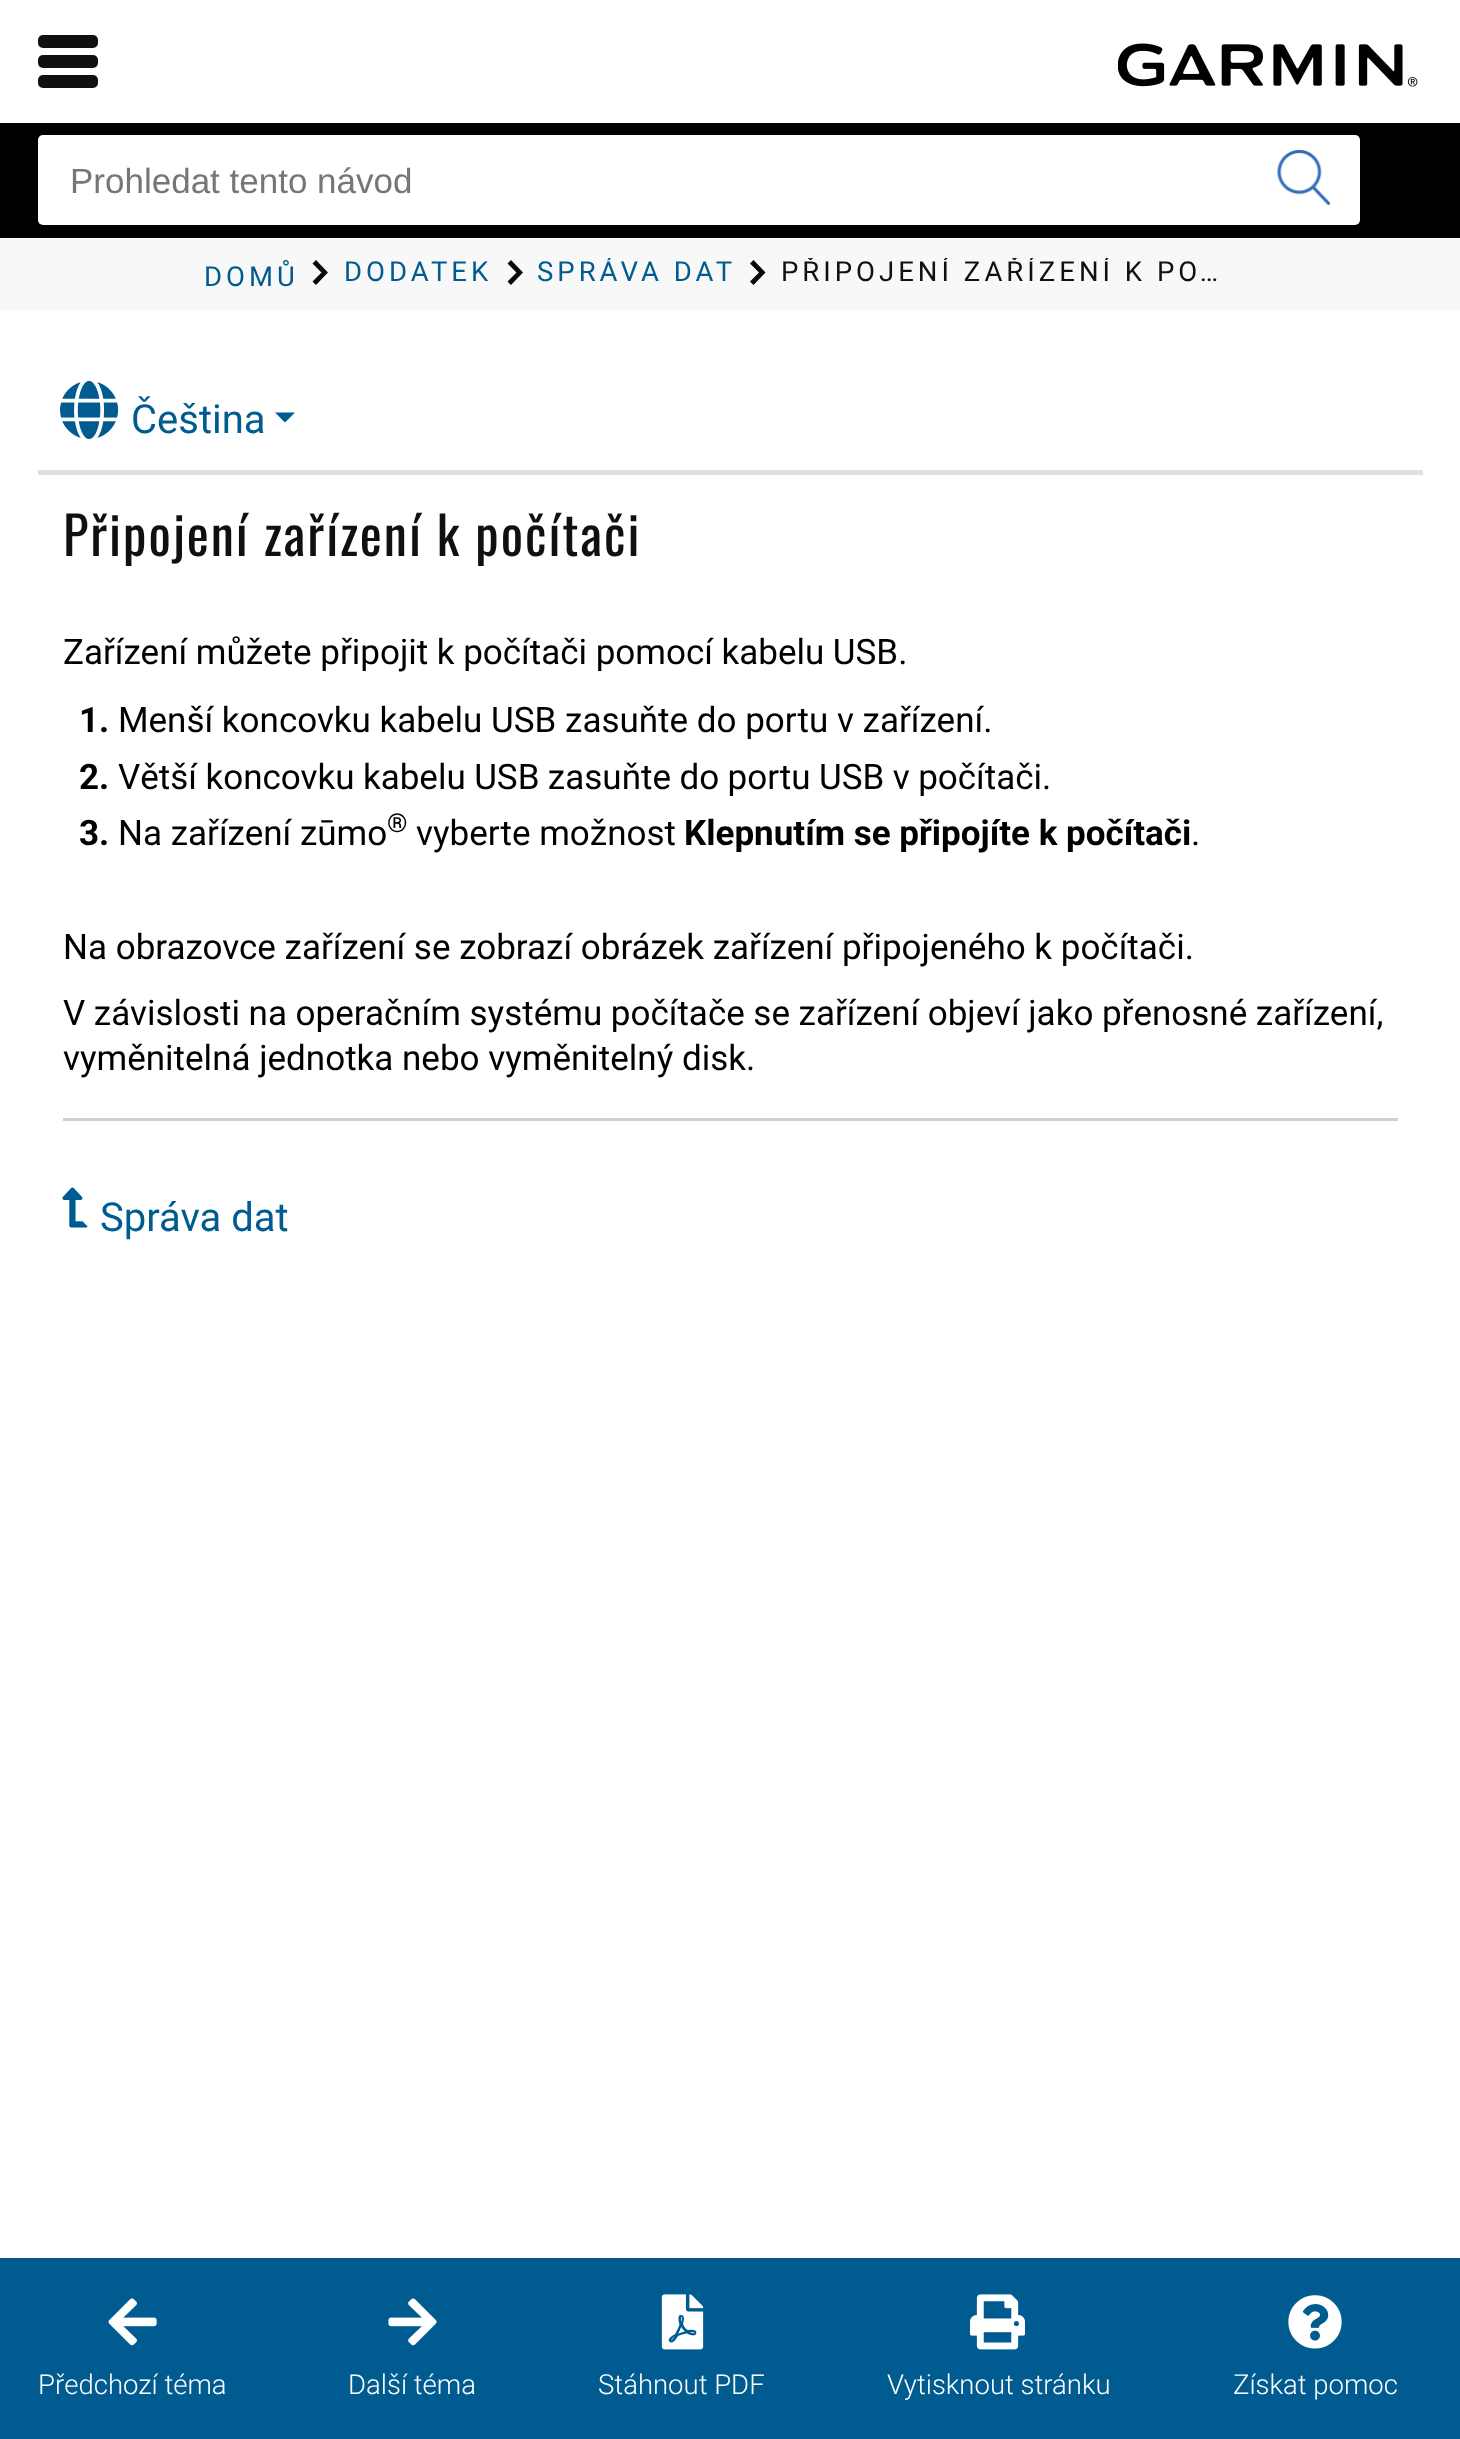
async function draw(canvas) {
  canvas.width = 1460;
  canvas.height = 2439;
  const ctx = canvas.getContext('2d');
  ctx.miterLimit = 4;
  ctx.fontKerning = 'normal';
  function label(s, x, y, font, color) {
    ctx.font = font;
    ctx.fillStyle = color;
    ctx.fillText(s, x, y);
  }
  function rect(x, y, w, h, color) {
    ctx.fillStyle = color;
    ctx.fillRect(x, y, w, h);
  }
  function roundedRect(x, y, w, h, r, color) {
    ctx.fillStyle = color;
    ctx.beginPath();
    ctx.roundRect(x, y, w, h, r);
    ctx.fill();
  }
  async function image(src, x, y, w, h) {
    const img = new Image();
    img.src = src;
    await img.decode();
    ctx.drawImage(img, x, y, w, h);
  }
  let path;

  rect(0, 0, 1460, 2439, '#fff');
  roundedRect(38, 35, 60, 13, 5, '#101010');
  roundedRect(38, 55, 60, 13, 5, '#101010');
  roundedRect(38, 75, 60, 13, 5, '#101010');
  await image('assets/img1.png', 1118, 43, 300, 44);
  rect(0, 123, 1460, 115, '#000');
  roundedRect(38, 135, 1322, 90, 5, '#fff');
  label('Prohledat tento návod', 70, 193, '35px Liberation Sans', '#767676');
  await image('assets/img2.png', 1277, 150, 53, 55);
  rect(0, 238, 1460, 72, '#f8f8f8');
  ctx.letterSpacing = '4px';
  label('DOMŮ', 204, 286, '27.5px Roboto', '#005c90');
  ctx.fillStyle = '#090909';
  path = new Path2D('M321.5 272.5L312.5 281.5L316 285L328 272.5L316 260L312.5 263.5Z');
  ctx.fill(path);
  label('DODATEK', 344, 281, '27.5px Roboto', '#005c90');
  ctx.fillStyle = '#090909';
  path = new Path2D('M516.5 272.5L507.5 281.5L511 285L523 272.5L511 260L507.5 263.5Z');
  ctx.fill(path);
  ctx.save();
  ctx.beginPath();
  ctx.rect(538, 258, 197, 27);
  ctx.clip();
  label('SPRÁVA DAT', 537, 281, '27.5px Roboto', '#005c90');
  ctx.restore();
  path = new Path2D('M759 272.5L750 281.5L753.5 285L765.5 272.5L753.5 260L750 263.5Z');
  ctx.fill(path);
  ctx.save();
  ctx.beginPath();
  ctx.rect(780, 258, 450, 27);
  ctx.clip();
  label('PŘIPOJENÍ ZAŘÍZENÍ K PO…', 781, 281, '27.5px Roboto', '#101010');
  ctx.restore();
  rect(38, 470, 1385, 5, '#e0e0e0');
  await image('assets/img3.png', 60, 380, 59, 60);
  ctx.letterSpacing = '0px';
  label('Čeština', 131, 433, '40px Roboto', '#005c90');
  path = new Path2D('M275 412.5H295L285 422.5Z');
  ctx.fill(path);
  ctx.letterSpacing = '2px';
  label('Připojení zařízení k počítači', 63, 556, '52.5px Oswald', '#101010');
  ctx.letterSpacing = '0px';
  ctx.wordSpacing = '-0.1px';
  label('Zařízení můžete připojit k počítači pomocí kabelu USB.', 63, 664, '35px Roboto', '#000');
  ctx.wordSpacing = '0px';
  label('1.', 79, 732, 'bold 35px Roboto', '#000');
  label('Menší koncovku kabelu USB zasuňte do portu v zařízení.', 118, 732, '35px Roboto', '#000');
  label('2.', 79, 789, 'bold 35px Roboto', '#000');
  ctx.wordSpacing = '-0.25px';
  label('Větší koncovku kabelu USB zasuňte do portu USB v počítači.', 118, 789, '35px Roboto', '#000');
  ctx.wordSpacing = '0px';
  label('3.', 79, 845, 'bold 35px Roboto', '#000');
  label('Na zařízení zūmo', 118, 845, '35px Roboto', '#000');
  label('®', 387, 832, '26px Roboto', '#000');
  label('vyberte možnost', 416, 845, '35px Roboto', '#000');
  label('Klepnutím se připojíte k počítači', 684, 845, 'bold 35px Roboto', '#000');
  label('.', 1191, 845, '35px Roboto', '#000');
  label('Na obrazovce zařízení se zobrazí obrázek zařízení připojeného k počítači.', 63, 959, '35px Roboto', '#000');
  ctx.wordSpacing = '-0.1px';
  label('V závislosti na operačním systému počítače se zařízení objeví jako přenosné zařízení,', 63, 1025, '35px Roboto', '#000');
  ctx.wordSpacing = '0px';
  label('vyměnitelná jednotka nebo vyměnitelný disk.', 63, 1070, '35px Roboto', '#000');
  rect(63, 1118, 1335, 3, '#cfcfcf');
  await image('assets/img4.png', 62, 1187, 26, 41);
  label('Správa dat', 100, 1231, '40px Roboto', '#005c90');
  rect(0, 2258, 1460, 181, '#005c90');
  await image('assets/img5.png', 108, 2298, 49, 48);
  label('Předchozí téma', 38, 2394, '300 27.5px Roboto', '#fff');
  await image('assets/img6.png', 388, 2298, 49, 48);
  label('Další téma', 348, 2394, '300 27.5px Roboto', '#fff');
  await image('assets/img7.png', 661, 2294, 43, 56);
  label('Stáhnout PDF', 598, 2394, '300 27.5px Roboto', '#fff');
  await image('assets/img8.png', 970, 2294, 55, 56);
  label('Vytisknout stránku', 887, 2394, '300 27.5px Roboto', '#fff');
  await image('assets/img9.png', 1288, 2295, 54, 54);
  label('Získat pomoc', 1233, 2394, '300 27.5px Roboto', '#fff');
}

draw(document.querySelector('canvas'));
